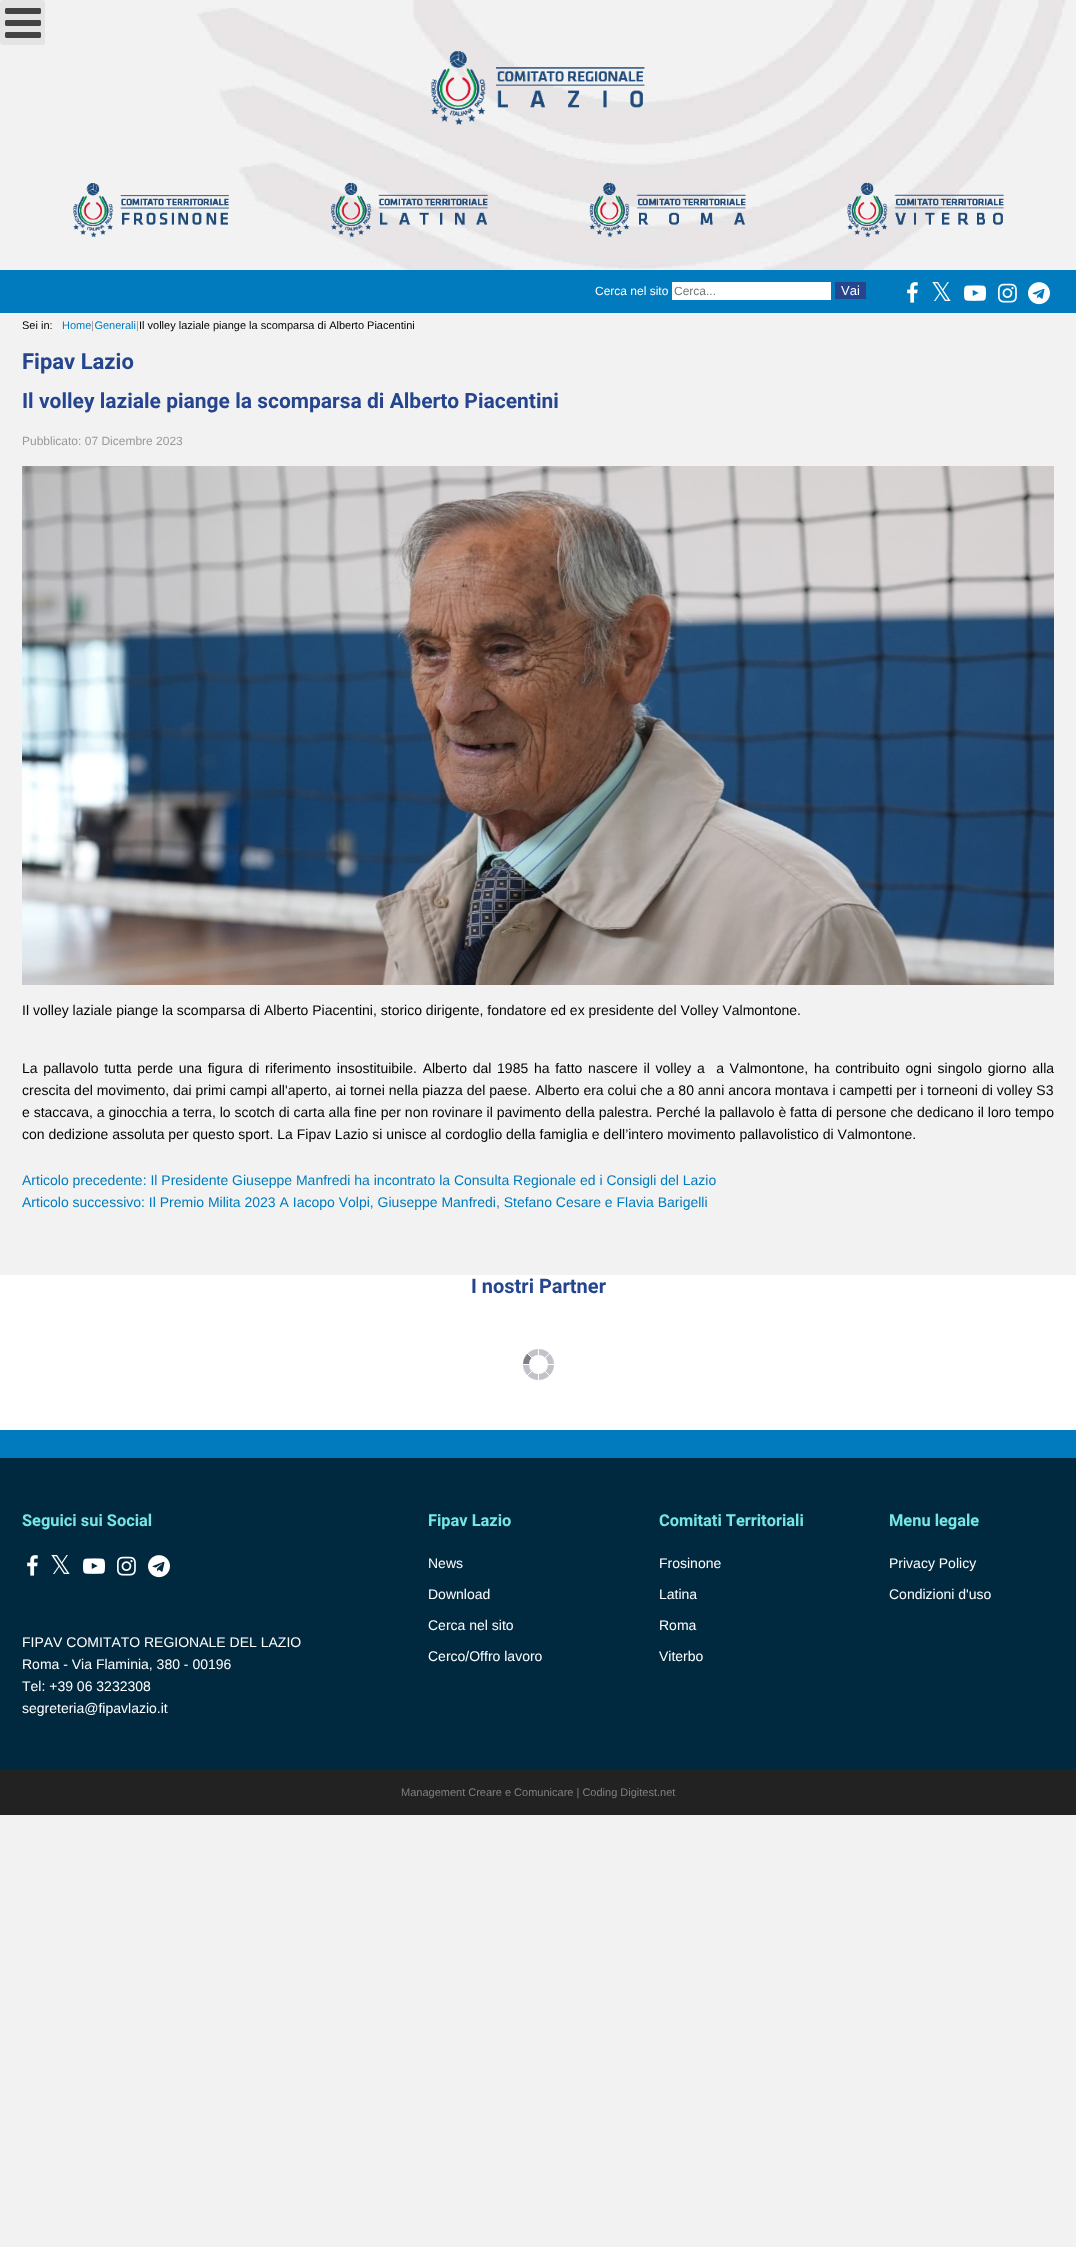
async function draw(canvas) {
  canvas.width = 1076;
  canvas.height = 2247;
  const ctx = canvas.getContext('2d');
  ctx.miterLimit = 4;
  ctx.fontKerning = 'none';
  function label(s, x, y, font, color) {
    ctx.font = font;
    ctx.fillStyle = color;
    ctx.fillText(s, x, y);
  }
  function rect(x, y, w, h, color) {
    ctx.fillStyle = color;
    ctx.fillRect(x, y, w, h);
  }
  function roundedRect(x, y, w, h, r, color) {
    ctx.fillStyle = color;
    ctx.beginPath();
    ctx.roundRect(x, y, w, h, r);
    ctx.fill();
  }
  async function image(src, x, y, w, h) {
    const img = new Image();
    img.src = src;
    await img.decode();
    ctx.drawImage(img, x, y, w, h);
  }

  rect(0, 0, 1076, 2247, '#f2f2f2');
  roundedRect(0, 0, 45, 45, 3, '#e4e4e4');
  await image('assets/img1.png', 5, 8, 36, 30);
  await image('assets/img2.png', 197, 0, 869, 270);
  await image('assets/img3.png', 430, 50, 215, 75);
  await image('assets/img4.png', 73, 183, 156, 55);
  await image('assets/img5.png', 331, 182, 157, 56);
  await image('assets/img6.png', 589, 182, 157, 56);
  await image('assets/img7.png', 847, 182, 158, 56);
  rect(0, 270, 1076, 43, '#017bbe');
  label('Cerca nel sito', 595, 295, '12px Liberation Sans', '#fff');
  rect(672, 282, 159, 18, '#fff');
  label('Cerca...', 674, 295, '12px Liberation Sans', '#757575');
  rect(835, 282, 31, 17, '#25458e');
  label('Vai', 841, 295, '13px Liberation Sans', '#fff');
  await image('assets/img8.png', 907, 282, 11, 21);
  label('𝕏', 931, 301, '26px DejaVu Sans', '#fff');
  await image('assets/img9.png', 964, 285, 22, 16);
  await image('assets/img10.png', 998, 283, 19, 20);
  await image('assets/img11.png', 1028, 282, 22, 23);
  label('Sei in:', 22, 329, '11px Liberation Sans', '#000');
  label('Home Generali', 62, 329, '11px Liberation Sans', '#017bbe');
  label('|', 91, 329, '11px Liberation Sans', '#999');
  label('|', 136, 329, '11px Liberation Sans', '#999');
  label('Il volley laziale piange la scomparsa di Alberto Piacentini', 139, 329, '11px Liberation Sans', '#000');
  label('Fipav Lazio', 22, 369, 'bold 22px Roboto', '#25458e');
  label('Il volley laziale piange la scomparsa di Alberto Piacentini', 22, 408, 'bold 21px Roboto', '#25458e');
  label('Pubblicato: 07 Dicembre 2023', 22, 445, '12px Liberation Sans', '#999');
  await image('assets/img12.png', 22, 466, 1032, 519);
  label('Il volley laziale piange la scomparsa di Alberto Piacentini, storico dirigente, fondatore ed ex presidente del Volley Valmontone.', 22, 1015, '14px Liberation Sans', '#000');
  ctx.wordSpacing = '1.8px';
  label('La pallavolo tutta perde una figura di riferimento insostituibile. Alberto dal 1985 ha fatto nascere il volley a  a Valmontone, ha contribuito ogni singolo giorno alla', 22, 1073, '14px Liberation Sans', '#000');
  ctx.wordSpacing = '0px';
  label('crescita del movimento, dai primi campi all\'aperto, ai tornei nella piazza del paese. Alberto era colui che a 80 anni ancora montava i campetti per i torneoni di volley S3', 22, 1095, '14px Liberation Sans', '#000');
  label('e staccava, a ginocchia a terra, lo scotch di carta alla fine per non rovinare il pavimento della palestra. Perché la pallavolo è fatta di persone che dedicano il loro tempo', 22, 1117, '14px Liberation Sans', '#000');
  label('con dedizione assoluta per questo sport. La Fipav Lazio si unisce al cordoglio della famiglia e dell’intero movimento pallavolistico di Valmontone.', 22, 1139, '14px Liberation Sans', '#000');
  label('Articolo precedente: Il Presidente Giuseppe Manfredi ha incontrato la Consulta Regionale ed i Consigli del Lazio', 22, 1185, '14px Liberation Sans', '#017bbe');
  label('Articolo successivo: Il Premio Milita 2023 A Iacopo Volpi, Giuseppe Manfredi, Stefano Cesare e Flavia Barigelli', 22, 1207, '14px Liberation Sans', '#017bbe');
  rect(0, 1275, 1076, 155, '#fff');
  label('I nostri Partner', 471, 1293, 'bold 20px Roboto', '#25458e');
  await image('assets/img13.png', 523, 1349, 31, 31);
  rect(0, 1430, 1076, 28, '#017bbe');
  rect(0, 1458, 1076, 311, '#00293f');
  label('Seguici sui Social', 22, 1526, 'bold 16.4px Roboto', '#75e6e2');
  await image('assets/img14.png', 27, 1555, 11, 21);
  label('𝕏', 50, 1574, '26px DejaVu Sans', '#fff');
  await image('assets/img15.png', 83, 1558, 22, 16);
  await image('assets/img16.png', 117, 1556, 19, 20);
  await image('assets/img17.png', 148, 1555, 22, 23);
  label('FIPAV COMITATO', 22, 1647, '14px Liberation Sans', '#fff');
  label('REGIONALE DEL LAZIO', 144, 1647, '14px Liberation Sans', '#fff');
  label('Roma - Via Flaminia, 380 - 00196', 22, 1669, '14px Liberation Sans', '#fff');
  label('Tel: +39 06 3232308', 22, 1691, '14px Liberation Sans', '#fff');
  label('segreteria@fipavlazio.it', 22, 1713, '14px Liberation Sans', '#fff');
  label('Fipav Lazio', 428, 1526, 'bold 16.4px Roboto', '#75e6e2');
  label('News', 428, 1568, '14px Liberation Sans', '#fff');
  label('Download', 428, 1599, '14px Liberation Sans', '#fff');
  label('Cerca nel sito', 428, 1630, '14px Liberation Sans', '#fff');
  label('Cerco/Offro lavoro', 428, 1661, '14px Liberation Sans', '#fff');
  label('Comitati Territoriali', 659, 1526, 'bold 16.4px Roboto', '#75e6e2');
  label('Frosinone', 659, 1568, '14px Liberation Sans', '#fff');
  label('Latina', 659, 1599, '14px Liberation Sans', '#fff');
  label('Roma', 659, 1630, '14px Liberation Sans', '#fff');
  label('Viterbo', 659, 1661, '14px Liberation Sans', '#fff');
  label('Menu legale', 889, 1526, 'bold 16.4px Roboto', '#75e6e2');
  label('Privacy Policy', 889, 1568, '14px Liberation Sans', '#fff');
  label('Condizioni d\'uso', 889, 1599, '14px Liberation Sans', '#fff');
  rect(0, 1769, 1076, 46, '#222');
  label('Management Creare e Comunicare | Coding Digitest.net', 401, 1796, '11px Liberation Sans', '#808080');
}

draw(document.querySelector('canvas'));
